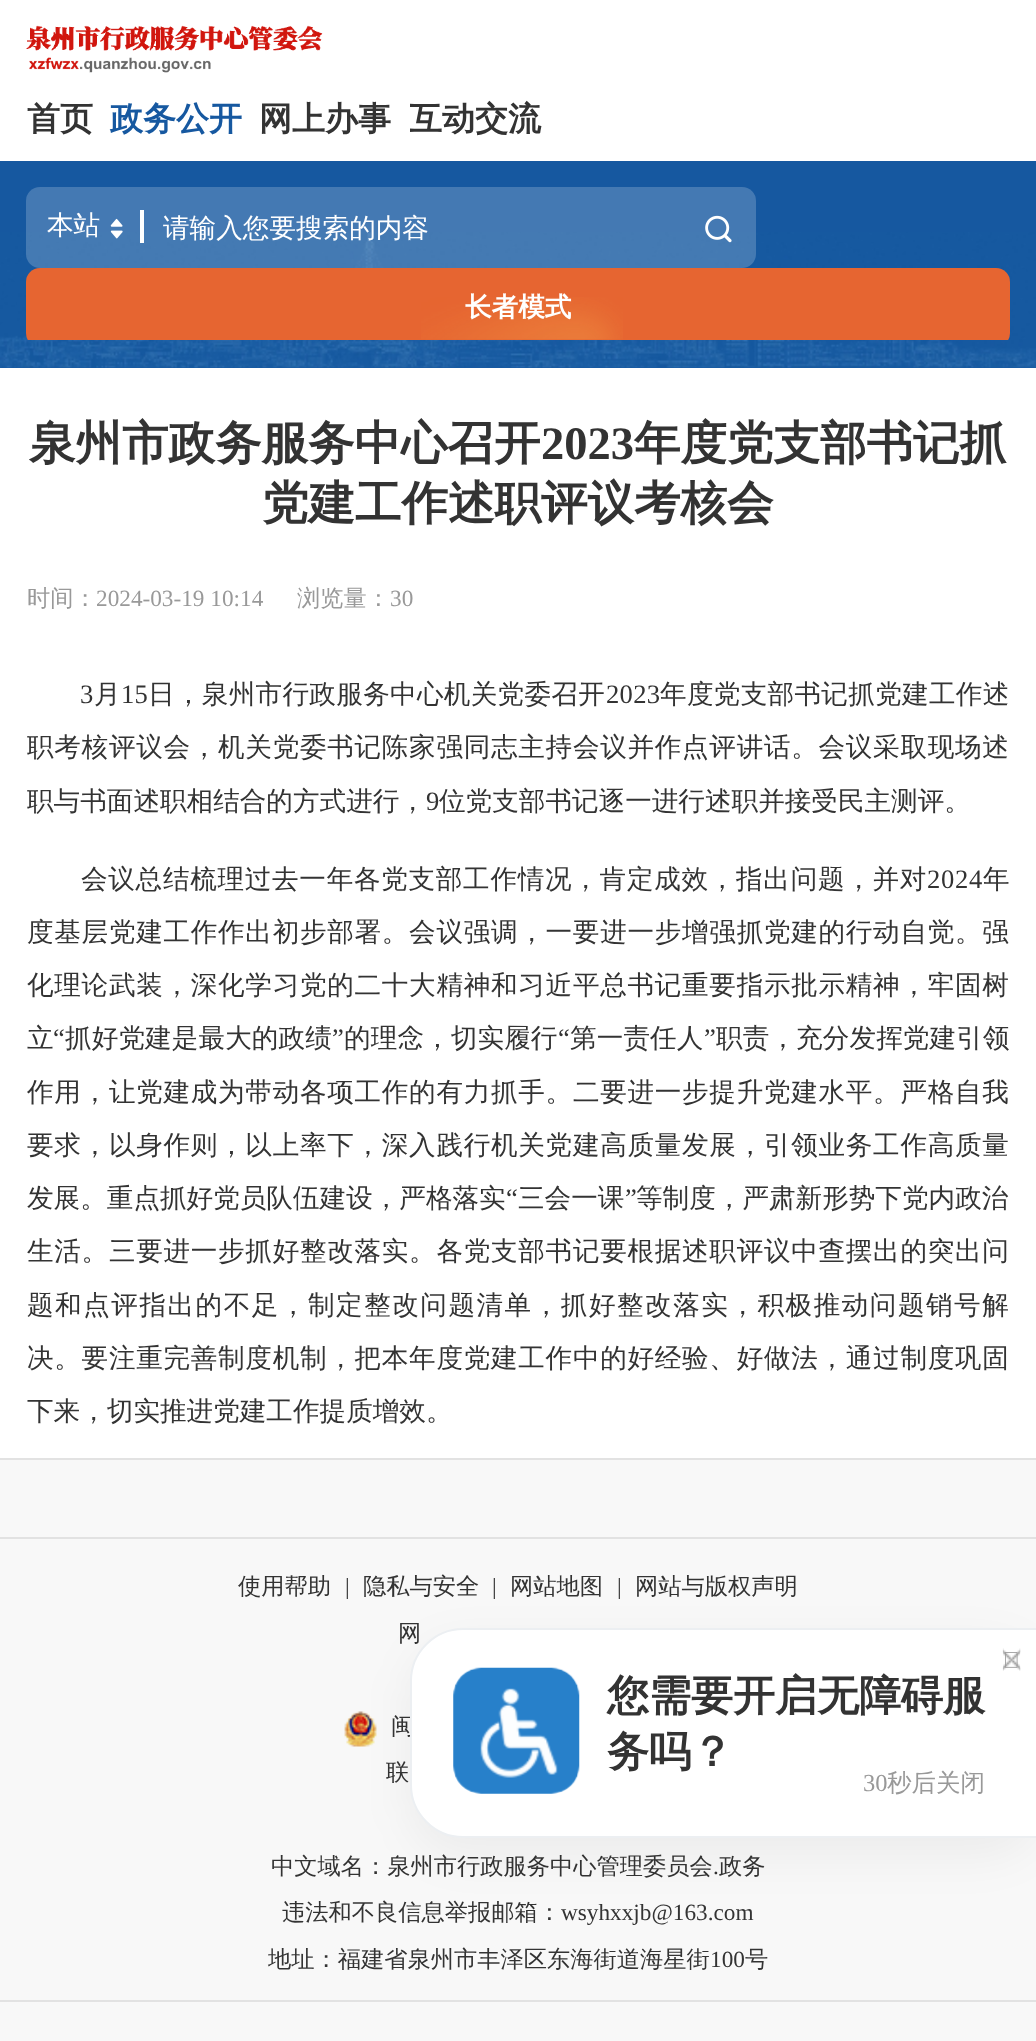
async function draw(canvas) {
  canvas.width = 1036;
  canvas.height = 2041;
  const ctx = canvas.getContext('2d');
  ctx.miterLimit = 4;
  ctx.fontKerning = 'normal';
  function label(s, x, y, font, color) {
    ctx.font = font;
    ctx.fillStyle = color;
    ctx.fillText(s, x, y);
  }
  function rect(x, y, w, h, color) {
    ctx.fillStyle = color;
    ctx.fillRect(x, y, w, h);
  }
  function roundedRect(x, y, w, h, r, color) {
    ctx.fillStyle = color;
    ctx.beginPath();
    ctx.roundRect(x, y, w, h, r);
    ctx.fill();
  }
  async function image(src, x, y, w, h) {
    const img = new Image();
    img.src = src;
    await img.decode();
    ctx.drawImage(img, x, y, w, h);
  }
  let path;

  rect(0, 0, 1036, 2041, '#fff');
  await image('assets/img1.png', 26, 25, 297, 48);
  label('首页', 27, 130, 'bold 33px WenQuanYi Zen Hei', '#333');
  label('政务公开', 110, 130, 'bold 33px WenQuanYi Zen Hei', '#1658a0');
  label('网上办事', 259, 130, 'bold 33px WenQuanYi Zen Hei', '#333');
  ctx.save();
  ctx.beginPath();
  ctx.rect(410, 77, 133, 84);
  ctx.clip();
  label('互动交流', 409, 130, 'bold 33px WenQuanYi Zen Hei', '#333');
  ctx.restore();
  rect(0, 161, 1036, 207, '#1658a0');
  await image('assets/img2.png', 0, 232, 1036, 136);
  roundedRect(26, 187, 730, 81, 14, '#ffffff33');
  label('本站', 47, 234, '500 26.6px WenQuanYi Zen Hei', '#fff');
  await image('assets/img3.png', 110, 218, 13, 21);
  rect(140, 210, 4, 33, '#fff');
  label('请输入您要搜索的内容', 163, 237, '500 26.6px WenQuanYi Zen Hei', '#fff');
  await image('assets/img4.png', 705, 215, 27, 28);
  ctx.save();
  ctx.beginPath();
  ctx.rect(11, 187, 1015, 153);
  ctx.clip();
  roundedRect(26, 268, 984, 79, 14, '#e66531');
  ctx.restore();
  await image('assets/img5.png', 421, 297, 202, 43);
  label('长者模式', 465, 316, 'bold 26.6px WenQuanYi Zen Hei', '#fff');
  label('泉州市政务服务中心召开', 29, 459, 'bold 46.5px WenQuanYi Zen Hei', '#333');
  label('2023', 541, 459, 'bold 46.5px Liberation Serif', '#333');
  label('年度党支部书记抓', 634, 459, 'bold 46.5px WenQuanYi Zen Hei', '#333');
  label('党建工作述职评议考核会', 262, 519, 'bold 46.5px WenQuanYi Zen Hei', '#333');
  label('时间：', 27, 606, '500 23.25px WenQuanYi Zen Hei', '#999');
  label('2024-03-19 10:14', 96, 606, '23.25px Liberation Serif', '#999');
  label('浏览量：', 297, 606, '500 23.25px WenQuanYi Zen Hei', '#999');
  label('30', 390, 606, '23.25px Liberation Serif', '#999');
  ctx.letterSpacing = '0.3px';
  label('3', 80, 703, '26.6px Liberation Serif', '#333');
  label('月', 94, 703, '500 26.6px WenQuanYi Zen Hei', '#333');
  label('15', 121, 703, '26.6px Liberation Serif', '#333');
  label('日，泉州市行政服务中心机关党委召开', 148, 703, '500 26.6px WenQuanYi Zen Hei', '#333');
  label('2023', 606, 703, '26.6px Liberation Serif', '#333');
  label('年度党支部书记抓党建工作述', 660, 703, '500 26.6px WenQuanYi Zen Hei', '#333');
  ctx.letterSpacing = '0.7px';
  label('职考核评议会，机关党委书记陈家强同志主持会议并作点评讲话。会议采取现场述', 27, 756, '500 26.6px WenQuanYi Zen Hei', '#333');
  ctx.letterSpacing = '0px';
  label('职与书面述职相结合的方式进行，', 27, 810, '500 26.6px WenQuanYi Zen Hei', '#333');
  label('9', 426, 810, '26.6px Liberation Serif', '#333');
  label('位党支部书记逐一进行述职并接受民主测评。', 439, 810, '500 26.6px WenQuanYi Zen Hei', '#333');
  ctx.letterSpacing = '0.7px';
  label('会议总结梳理过去一年各党支部工作情况，肯定成效，指出问题，并对', 81, 888, '500 26.6px WenQuanYi Zen Hei', '#333');
  label('2024', 927, 888, '26.6px Liberation Serif', '#333');
  label('年', 983, 888, '500 26.6px WenQuanYi Zen Hei', '#333');
  label('度基层党建工作作出初步部署。会议强调，一要进一步增强抓党建的行动自觉。强', 27, 941, '500 26.6px WenQuanYi Zen Hei', '#333');
  label('化理论武装，深化学习党的二十大精神和习近平总书记重要指示批示精神，牢固树', 27, 994, '500 26.6px WenQuanYi Zen Hei', '#333');
  ctx.letterSpacing = '0.1px';
  label('立', 27, 1047, '500 26.6px WenQuanYi Zen Hei', '#333');
  label('“', 53, 1047, '26.6px Liberation Serif', '#333');
  label('抓好党建是最大的政绩', 65, 1047, '500 26.6px WenQuanYi Zen Hei', '#333');
  label('”', 332, 1047, '26.6px Liberation Serif', '#333');
  label('的理念，切实履行', 344, 1047, '500 26.6px WenQuanYi Zen Hei', '#333');
  label('“', 558, 1047, '26.6px Liberation Serif', '#333');
  label('第一责任人', 570, 1047, '500 26.6px WenQuanYi Zen Hei', '#333');
  label('”', 704, 1047, '26.6px Liberation Serif', '#333');
  label('职责，充分发挥党建引领', 716, 1047, '500 26.6px WenQuanYi Zen Hei', '#333');
  ctx.letterSpacing = '0.7px';
  label('作用，让党建成为带动各项工作的有力抓手。二要进一步提升党建水平。严格自我', 27, 1101, '500 26.6px WenQuanYi Zen Hei', '#333');
  label('要求，以身作则，以上率下，深入践行机关党建高质量发展，引领业务工作高质量', 27, 1154, '500 26.6px WenQuanYi Zen Hei', '#333');
  ctx.letterSpacing = '0px';
  label('发展。重点抓好党员队伍建设，严格落实', 27, 1207, '500 26.6px WenQuanYi Zen Hei', '#333');
  label('“', 506, 1207, '26.6px Liberation Serif', '#333');
  label('三会一课', 518, 1207, '500 26.6px WenQuanYi Zen Hei', '#333');
  label('”', 625, 1207, '26.6px Liberation Serif', '#333');
  label('等制度，严肃新形势下党内政治', 636, 1207, '500 26.6px WenQuanYi Zen Hei', '#333');
  ctx.letterSpacing = '0.7px';
  label('生活。三要进一步抓好整改落实。各党支部书记要根据述职评议中查摆出的突出问', 27, 1260, '500 26.6px WenQuanYi Zen Hei', '#333');
  ctx.letterSpacing = '1.5px';
  label('题和点评指出的不足，制定整改问题清单，抓好整改落实，积极推动问题销号解', 27, 1314, '500 26.6px WenQuanYi Zen Hei', '#333');
  ctx.letterSpacing = '0.7px';
  label('决。要注重完善制度机制，把本年度党建工作中的好经验、好做法，通过制度巩固', 27, 1367, '500 26.6px WenQuanYi Zen Hei', '#333');
  ctx.letterSpacing = '0px';
  label('下来，切实推进党建工作提质增效。', 27, 1420, '500 26.6px WenQuanYi Zen Hei', '#333');
  rect(0, 1460, 1036, 581, '#f8f8f8');
  rect(0, 1458, 1036, 2, '#e2e2e2');
  rect(0, 1537, 1036, 2, '#e2e2e2');
  label('使用帮助', 238, 1594, '500 23.25px WenQuanYi Zen Hei', '#333');
  label('|', 345, 1594, '23.25px Liberation Serif', '#333');
  label('隐私与安全', 363, 1594, '500 23.25px WenQuanYi Zen Hei', '#333');
  label('|', 492, 1594, '23.25px Liberation Serif', '#333');
  label('网站地图', 510, 1594, '500 23.25px WenQuanYi Zen Hei', '#333');
  label('|', 617, 1594, '23.25px Liberation Serif', '#333');
  label('网站与版权声明', 635, 1594, '500 23.25px WenQuanYi Zen Hei', '#333');
  label('网', 398, 1641, '500 23.25px WenQuanYi Zen Hei', '#333');
  await image('assets/img6.png', 344, 1711, 33, 36);
  label('闽', 391, 1734, '500 23.25px WenQuanYi Zen Hei', '#333');
  label('联', 386, 1780, '500 23.25px WenQuanYi Zen Hei', '#333');
  label('中文域名：泉州市行政服务中心管理委员会', 271, 1874, '500 23.25px WenQuanYi Zen Hei', '#333');
  label('.', 713, 1874, '23.25px Liberation Serif', '#333');
  label('政务', 719, 1874, '500 23.25px WenQuanYi Zen Hei', '#333');
  label('违法和不良信息举报邮箱：', 282, 1920, '500 23.25px WenQuanYi Zen Hei', '#333');
  label('wsyhxxjb@163.com', 561, 1920, '23.25px Liberation Serif', '#333');
  label('地址：福建省泉州市丰泽区东海街道海星街', 268, 1967, '500 23.25px WenQuanYi Zen Hei', '#333');
  label('100', 710, 1967, '23.25px Liberation Serif', '#333');
  label('号', 745, 1967, '500 23.25px WenQuanYi Zen Hei', '#333');
  rect(0, 2000, 1036, 2, '#e2e2e2');
  ctx.fillStyle = '#0404040d';
  ctx.filter = 'blur(23.5px)';
  ctx.beginPath();
  ctx.roundRect(410, 1645, 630, 210, 53);
  ctx.fill();
  ctx.filter = 'none';
  ctx.fillStyle = '#fff';
  path = new Path2D('M463 1629H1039V1837H463C434.5 1837 411 1813.5 411 1785V1681C411 1652.5 434.5 1629 463 1629Z');
  ctx.fill(path);
  ctx.strokeStyle = '#eceff2';
  ctx.lineWidth = 2;
  ctx.stroke(path);
  await image('assets/img7.png', 1002, 1648, 19, 23);
  await image('assets/img8.png', 1005, 1652, 13, 16);
  await image('assets/img9.png', 453, 1667, 127, 127);
  label('您需要开启无障碍服', 607, 1710, 'bold 42px WenQuanYi Zen Hei', '#333');
  label('务吗？', 607, 1766, 'bold 42px WenQuanYi Zen Hei', '#333');
  label('30', 863, 1791, '24.5px Liberation Serif', '#999');
  label('秒后关闭', 887, 1791, '500 24.5px WenQuanYi Zen Hei', '#999');
}

draw(document.querySelector('canvas'));
